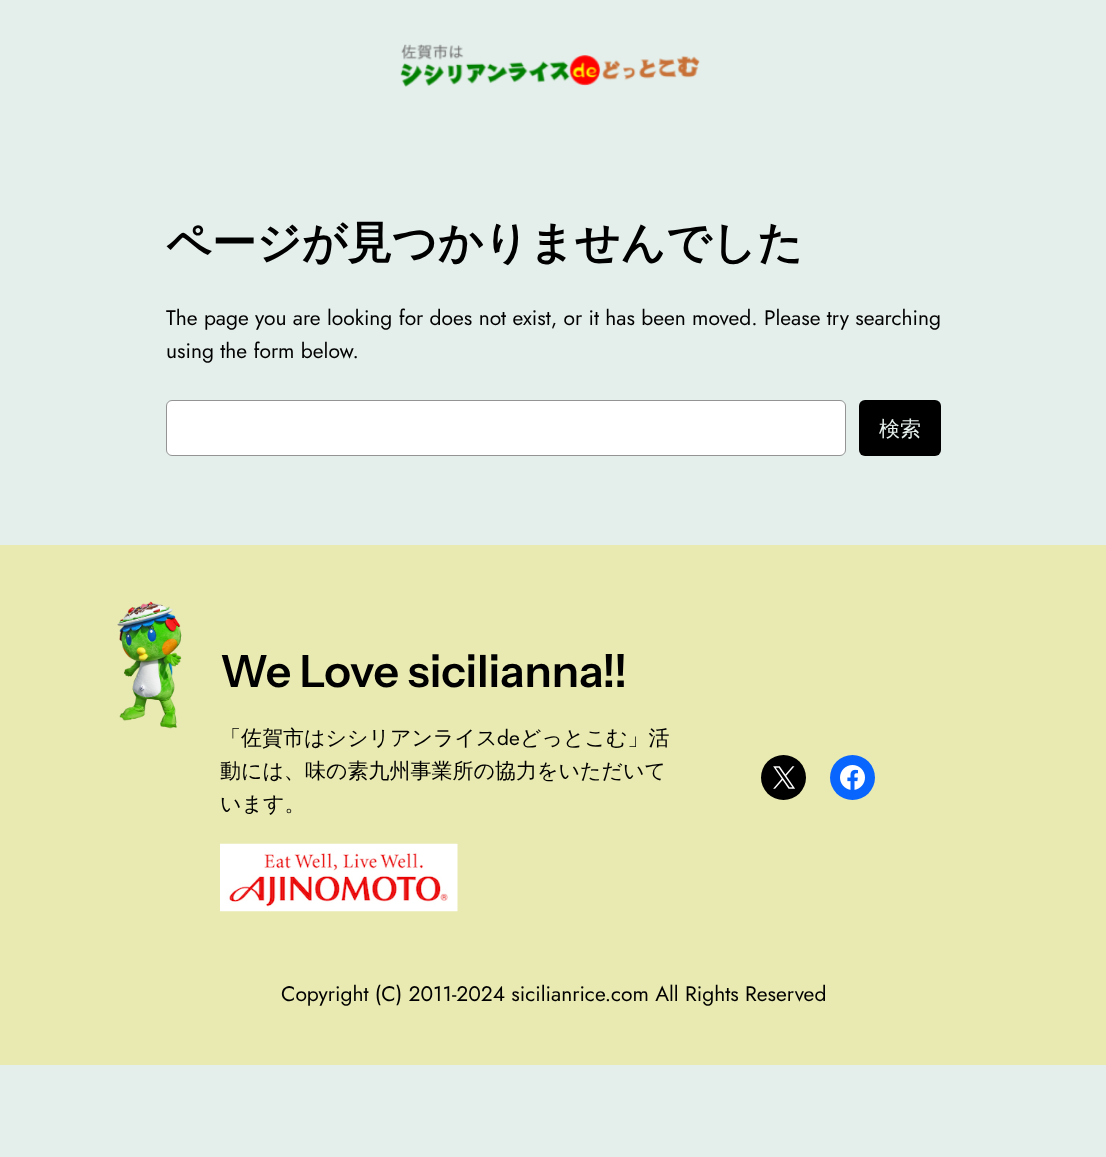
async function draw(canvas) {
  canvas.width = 1106;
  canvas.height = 1157;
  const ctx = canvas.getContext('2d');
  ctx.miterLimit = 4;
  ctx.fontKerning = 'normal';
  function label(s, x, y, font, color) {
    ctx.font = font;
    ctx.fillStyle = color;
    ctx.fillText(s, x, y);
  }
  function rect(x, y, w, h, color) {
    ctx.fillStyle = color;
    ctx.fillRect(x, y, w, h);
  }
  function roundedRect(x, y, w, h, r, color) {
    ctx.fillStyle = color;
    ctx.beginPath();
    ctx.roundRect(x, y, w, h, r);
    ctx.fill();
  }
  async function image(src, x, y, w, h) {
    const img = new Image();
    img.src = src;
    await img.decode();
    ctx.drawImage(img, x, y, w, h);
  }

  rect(0, 0, 1106, 1157, '#e4efeb');
  await image('assets/img1.png', 400, 44, 300, 43);
  label('ページが見つかりませんでした', 166, 258, 'bold 44.6px WenQuanYi Zen Hei', '#000');
  label('The page you are looking for does not exist, or it has been moved. Please try searching', 166, 325, '21px Jost', '#000');
  label('using the form below.', 166, 358, '21px Jost', '#000');
  ctx.fillStyle = '#fff';
  ctx.beginPath();
  ctx.roundRect(166.5, 400.5, 679, 55, 5.5);
  ctx.fill();
  ctx.strokeStyle = '#949494';
  ctx.stroke();
  roundedRect(859, 400, 82, 56, 6, '#000');
  label('検索', 879, 436, '500 21px WenQuanYi Zen Hei', '#e4efeb');
  rect(0, 545, 1106, 520, '#e9eab1');
  await image('assets/img2.png', 117, 601, 65, 128);
  label('We Love sicilianna!!', 220, 687, '600 44.6px Instrument Sans', '#000');
  label('「佐賀市はシシリアンライス', 220, 745, '500 21px WenQuanYi Zen Hei', '#000');
  label('de', 497, 745, '21px Jost', '#000');
  label('どっとこむ」活', 520, 745, '500 21px WenQuanYi Zen Hei', '#000');
  label('動には、味の素九州事業所の協力をいただいて', 220, 778, '500 21px WenQuanYi Zen Hei', '#000');
  label('います。', 220, 811, '500 21px WenQuanYi Zen Hei', '#000');
  await image('assets/img3.png', 220, 843, 238, 69);
  ctx.beginPath();
  ctx.arc(783.5, 777.5, 22.5, 0, 2 * Math.PI);
  ctx.fill();
  await image('assets/img4.png', 773, 766, 22, 23);
  ctx.fillStyle = '#0866ff';
  ctx.beginPath();
  ctx.arc(852.5, 777.5, 22.5, 0, 2 * Math.PI);
  ctx.fill();
  await image('assets/img5.png', 840, 765, 25, 25);
  label('Copyright (C) 2011-2024 sicilianrice.com All Rights Reserved', 281, 1001, '21px Jost', '#000');
}

draw(document.querySelector('canvas'));
